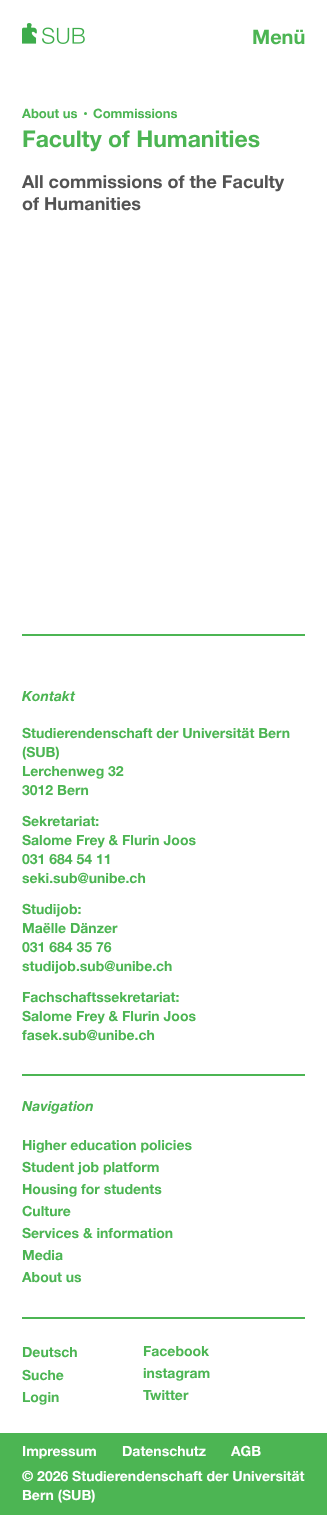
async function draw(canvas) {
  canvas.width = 327;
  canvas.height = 1515;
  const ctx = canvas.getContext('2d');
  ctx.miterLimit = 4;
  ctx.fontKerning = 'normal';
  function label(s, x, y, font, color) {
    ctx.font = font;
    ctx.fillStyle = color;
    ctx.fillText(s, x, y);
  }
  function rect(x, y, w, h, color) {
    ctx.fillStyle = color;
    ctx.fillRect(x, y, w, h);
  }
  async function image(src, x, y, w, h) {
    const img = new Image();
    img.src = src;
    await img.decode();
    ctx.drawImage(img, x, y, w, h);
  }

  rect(0, 0, 327, 1515, '#fff');
  await image('assets/img1.png', 22, 23, 63, 21);
  label('Menü', 252, 44, 'bold 20px "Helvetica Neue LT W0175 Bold"', '#4cb553');
  label('About us', 22, 118, 'bold 13px "Helvetica Neue LT W0175 Bold"', '#4cb553');
  ctx.beginPath();
  ctx.arc(85.5, 113.5, 1.5, 0, 2 * Math.PI);
  ctx.fill();
  label('Commissions', 93, 118, 'bold 13px "Helvetica Neue LT W0175 Bold"', '#4cb553');
  label('Faculty of Humanities', 22, 147, 'bold 23px "Helvetica Neue LT W0175 Bold"', '#4cb553');
  label('All commissions of the Faculty', 22, 188, 'bold 18px "Helvetica Neue LT W0175 Bold"', '#535353');
  label('of Humanities', 22, 210, 'bold 18px "Helvetica Neue LT W0175 Bold"', '#535353');
  rect(22, 634, 283, 2, '#4cb553');
  label('Kontakt', 22, 701, 'bold 14px "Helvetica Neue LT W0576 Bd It"', '#4cb553');
  label('Studierendenschaft der Universität Bern', 22, 738, 'bold 14px "Helvetica Neue LT W0175 Bold"', '#4cb553');
  label('(SUB)', 22, 757, 'bold 14px "Helvetica Neue LT W0175 Bold"', '#4cb553');
  label('Lerchenweg 32', 22, 776, 'bold 14px "Helvetica Neue LT W0175 Bold"', '#4cb553');
  label('3012 Bern', 22, 795, 'bold 14px "Helvetica Neue LT W0175 Bold"', '#4cb553');
  label('Sekretariat:', 22, 826, 'bold 14px "Helvetica Neue LT W0175 Bold"', '#4cb553');
  label('Salome Frey & Flurin Joos', 22, 845, 'bold 14px "Helvetica Neue LT W0175 Bold"', '#4cb553');
  label('031 684 54 11', 22, 864, 'bold 14px "Helvetica Neue LT W0175 Bold"', '#4cb553');
  label('seki.sub@unibe.ch', 22, 883, 'bold 14px "Helvetica Neue LT W0175 Bold"', '#4cb553');
  label('Studijob:', 22, 914, 'bold 14px "Helvetica Neue LT W0175 Bold"', '#4cb553');
  label('Maëlle Dänzer', 22, 933, 'bold 14px "Helvetica Neue LT W0175 Bold"', '#4cb553');
  label('031 684 35 76', 22, 952, 'bold 14px "Helvetica Neue LT W0175 Bold"', '#4cb553');
  label('studijob.sub@unibe.ch', 22, 971, 'bold 14px "Helvetica Neue LT W0175 Bold"', '#4cb553');
  label('Fachschaftssekretariat:', 22, 1002, 'bold 14px "Helvetica Neue LT W0175 Bold"', '#4cb553');
  label('Salome Frey & Flurin Joos', 22, 1021, 'bold 14px "Helvetica Neue LT W0175 Bold"', '#4cb553');
  label('fasek.sub@unibe.ch', 22, 1040, 'bold 14px "Helvetica Neue LT W0175 Bold"', '#4cb553');
  rect(22, 1074, 283, 2, '#4cb553');
  label('Navigation', 22, 1111, 'bold 14px "Helvetica Neue LT W0576 Bd It"', '#4cb553');
  label('Higher education policies', 22, 1150, 'bold 14px "Helvetica Neue LT W0175 Bold"', '#4cb553');
  label('Student job platform', 22, 1172, 'bold 14px "Helvetica Neue LT W0175 Bold"', '#4cb553');
  label('Housing for students', 22, 1194, 'bold 14px "Helvetica Neue LT W0175 Bold"', '#4cb553');
  label('Culture', 22, 1216, 'bold 14px "Helvetica Neue LT W0175 Bold"', '#4cb553');
  label('Services & information', 22, 1238, 'bold 14px "Helvetica Neue LT W0175 Bold"', '#4cb553');
  label('Media', 22, 1260, 'bold 14px "Helvetica Neue LT W0175 Bold"', '#4cb553');
  label('About us', 22, 1282, 'bold 14px "Helvetica Neue LT W0175 Bold"', '#4cb553');
  rect(22, 1317, 283, 2, '#4cb553');
  label('Deutsch', 22, 1357, 'bold 14px "Helvetica Neue LT W0175 Bold"', '#4cb553');
  label('Suche', 22, 1380, 'bold 14px "Helvetica Neue LT W0175 Bold"', '#4cb553');
  label('Login', 22, 1402, 'bold 14px "Helvetica Neue LT W0175 Bold"', '#4cb553');
  label('Facebook', 143, 1356, 'bold 14px "Helvetica Neue LT W0175 Bold"', '#4cb553');
  label('instagram', 143, 1378, 'bold 14px "Helvetica Neue LT W0175 Bold"', '#4cb553');
  label('Twitter', 143, 1400, 'bold 14px "Helvetica Neue LT W0175 Bold"', '#4cb553');
  rect(0, 1433, 327, 82, '#4cb553');
  label('Impressum', 22, 1456, 'bold 14px "Helvetica Neue LT W0175 Bold"', '#fff');
  label('Datenschutz', 122, 1456, 'bold 14px "Helvetica Neue LT W0175 Bold"', '#fff');
  label('AGB', 231, 1456, 'bold 14px "Helvetica Neue LT W0175 Bold"', '#fff');
  label('© 2026 Studierendenschaft der Universität', 22, 1481, 'bold 14px "Helvetica Neue LT W0175 Bold"', '#fff');
  label('Bern (SUB)', 22, 1500, 'bold 14px "Helvetica Neue LT W0175 Bold"', '#fff');
}

draw(document.querySelector('canvas'));
